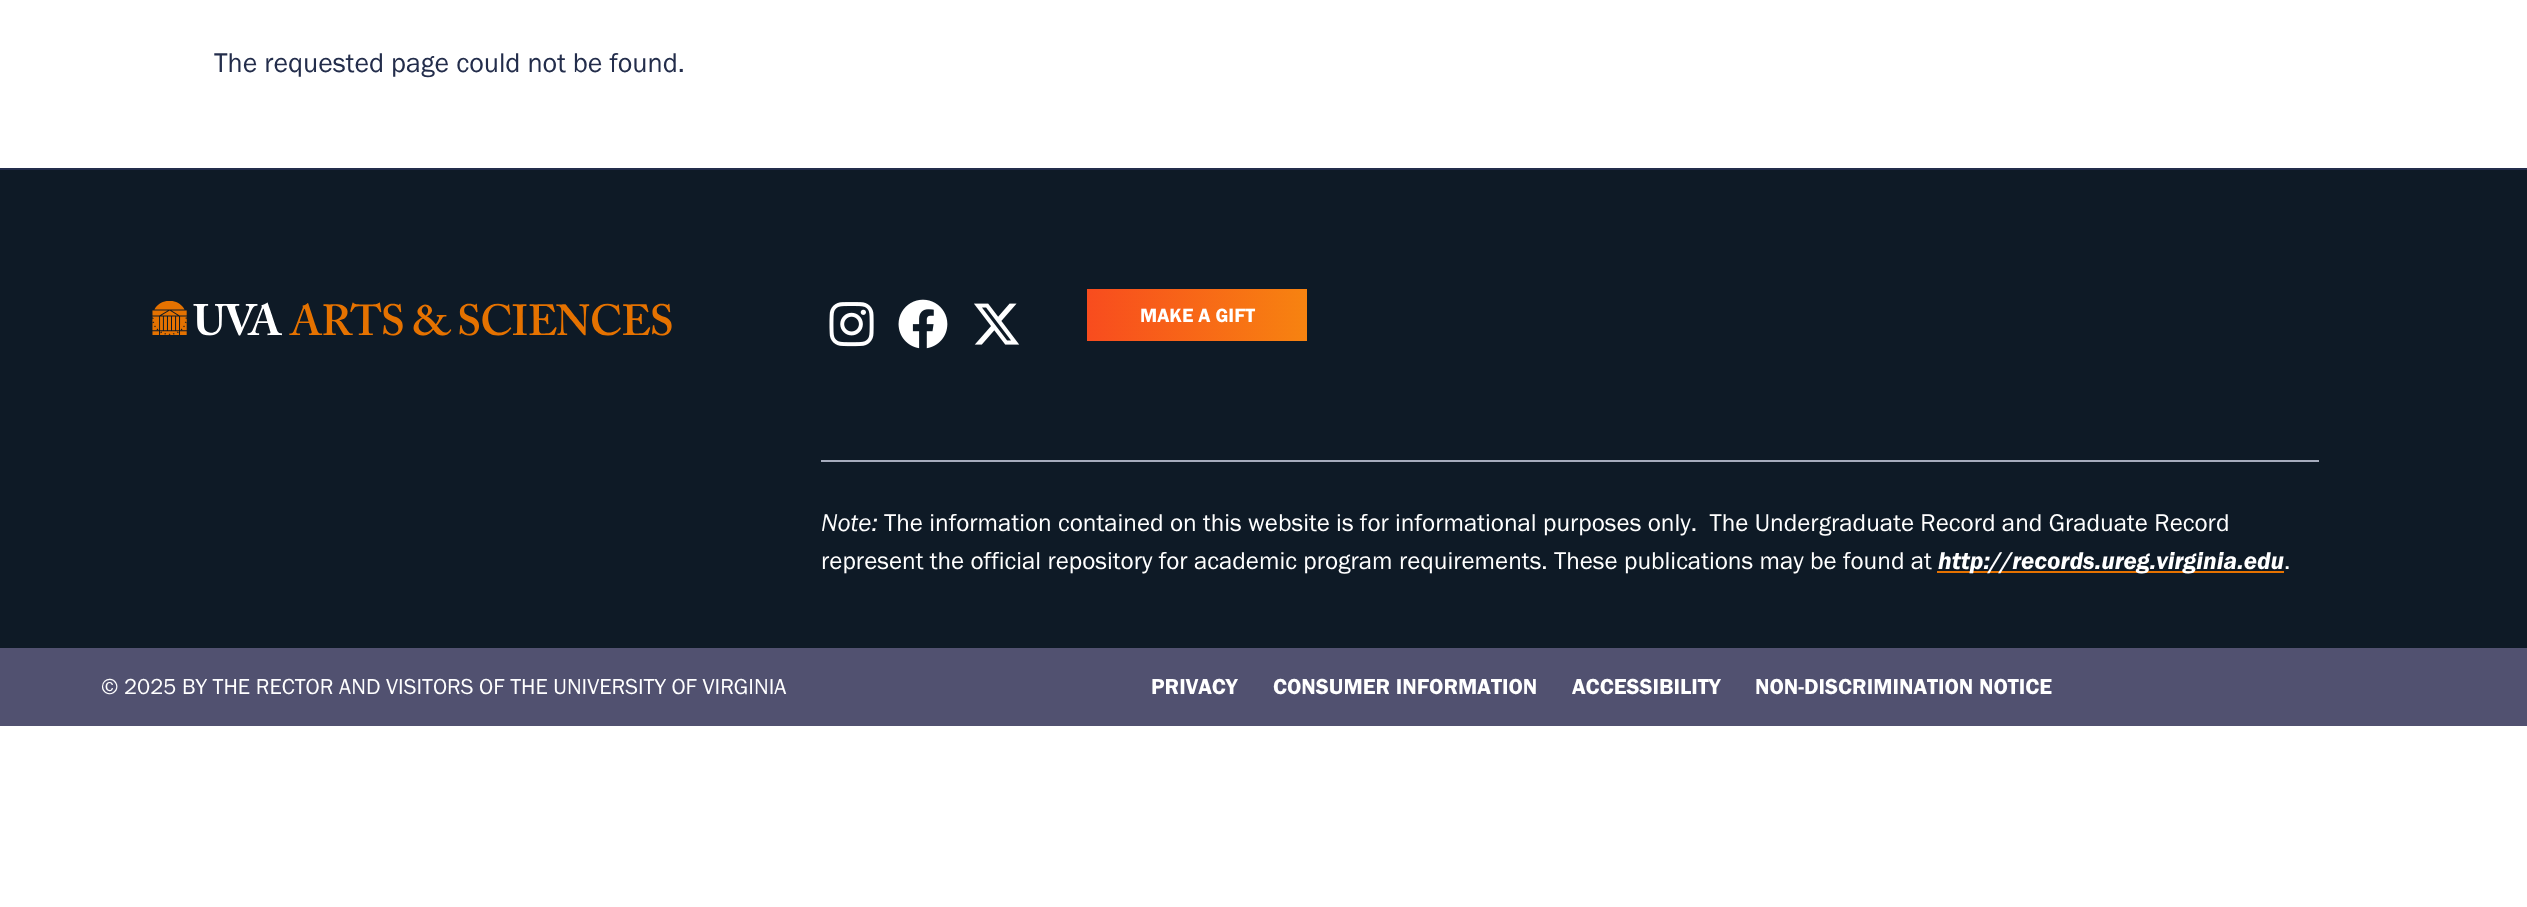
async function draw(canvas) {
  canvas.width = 2527;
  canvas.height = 907;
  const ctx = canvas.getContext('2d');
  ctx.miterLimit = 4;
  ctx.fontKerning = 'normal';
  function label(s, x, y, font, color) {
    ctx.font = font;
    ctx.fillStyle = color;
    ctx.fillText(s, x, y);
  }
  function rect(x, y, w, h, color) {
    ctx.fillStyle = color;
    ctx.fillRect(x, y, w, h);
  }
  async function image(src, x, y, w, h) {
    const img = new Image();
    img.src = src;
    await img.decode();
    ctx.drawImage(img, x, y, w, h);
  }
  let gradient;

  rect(0, 0, 2527, 907, '#fff');
  label('The requested page could not be found.', 214, 72, '28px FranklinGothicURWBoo', '#232d4b');
  rect(0, 170, 2527, 478, '#0e1a26');
  rect(0, 168, 2527, 2, '#232d4b');
  await image('assets/img1.png', 152, 301, 520, 35);
  await image('assets/img2.png', 829, 302, 45, 45);
  await image('assets/img3.png', 898, 299, 50, 50);
  await image('assets/img4.png', 974, 303, 46, 42);
  gradient = ctx.createLinearGradient(1087, 315, 1307, 315);
  gradient.addColorStop(0, '#f84c1e');
  gradient.addColorStop(1, '#f78310');
  ctx.fillStyle = gradient;
  ctx.fillRect(1087, 289, 220, 52);
  label('MAKE A GIFT', 1140, 322, '20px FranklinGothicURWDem', '#fff');
  rect(821, 460, 1498, 2, '#a6acbd');
  label('Note:', 821, 531, 'italic 25.2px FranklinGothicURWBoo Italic', '#fff');
  label('The information contained on this website is for informational purposes only.  The Undergraduate Record and Graduate Record', 884, 531, '25.2px FranklinGothicURWBoo', '#fff');
  label('represent the official repository for academic program requirements. These publications may be found at', 821, 569, '25.2px FranklinGothicURWBoo', '#fff');
  rect(1937, 571, 347, 2, '#e57200');
  label('http://records.ureg.virginia.edu', 1938, 569, 'italic 25.2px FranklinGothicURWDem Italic', '#fff');
  label('.', 2284, 569, '25.2px FranklinGothicURWBoo', '#fff');
  rect(0, 648, 2527, 78, '#515170');
  label('© 2025 BY THE RECTOR AND VISITORS OF THE UNIVERSITY OF VIRGINIA', 101, 694, '22.4px FranklinGothicURWBoo', '#fff');
  label('PRIVACY', 1151, 694, '22.4px FranklinGothicURWDem', '#fff');
  label('CONSUMER INFORMATION', 1273, 694, '22.4px FranklinGothicURWDem', '#fff');
  label('ACCESSIBILITY', 1572, 694, '22.4px FranklinGothicURWDem', '#fff');
  label('NON-DISCRIMINATION NOTICE', 1755, 694, '22.4px FranklinGothicURWDem', '#fff');
}

draw(document.querySelector('canvas'));
